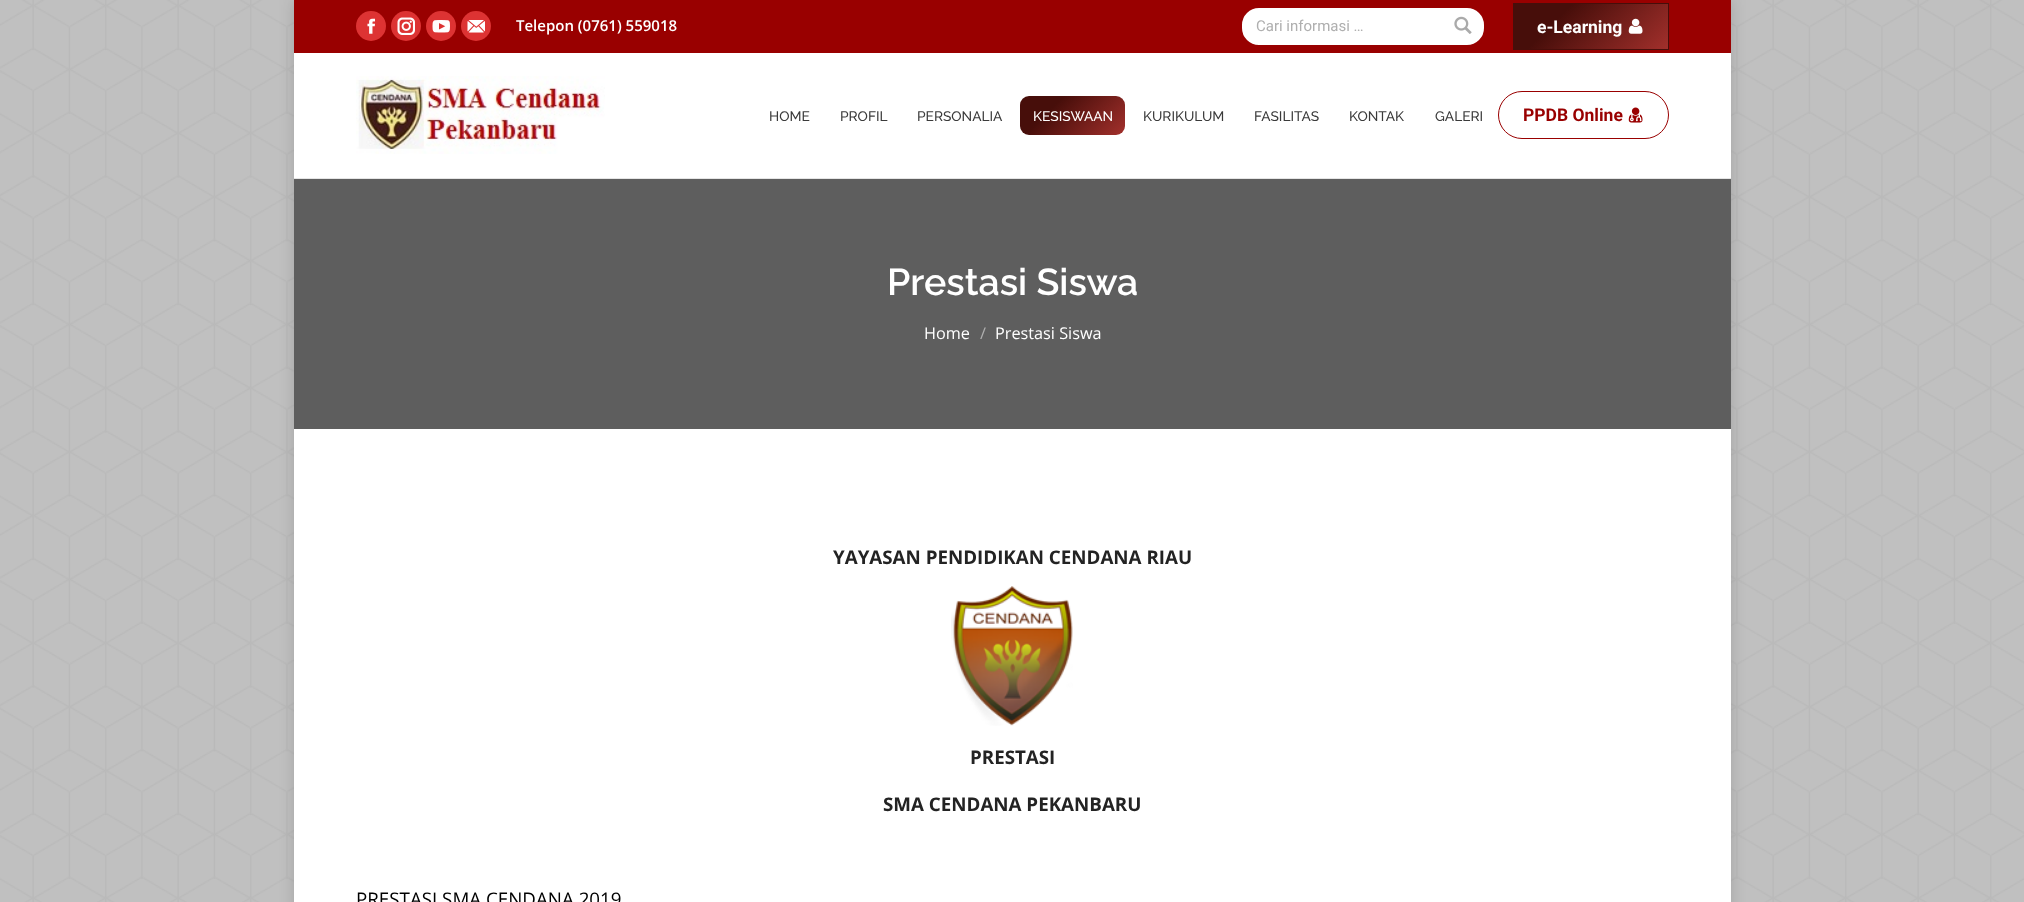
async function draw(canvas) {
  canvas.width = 2024;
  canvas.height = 902;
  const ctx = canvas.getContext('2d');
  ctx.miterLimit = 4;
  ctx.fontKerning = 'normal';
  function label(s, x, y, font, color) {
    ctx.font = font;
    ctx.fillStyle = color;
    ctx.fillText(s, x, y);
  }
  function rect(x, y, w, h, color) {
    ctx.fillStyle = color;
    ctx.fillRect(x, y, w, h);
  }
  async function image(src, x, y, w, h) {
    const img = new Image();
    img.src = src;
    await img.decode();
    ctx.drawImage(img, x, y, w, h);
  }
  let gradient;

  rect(0, 0, 2024, 902, '#c0c0c0');
  await image('assets/img1.png', 0, 0, 2024, 902);
  ctx.fillStyle = '#00000026';
  ctx.filter = 'blur(7.5px)';
  ctx.beginPath();
  ctx.rect(294, 0, 1437, 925);
  ctx.fill();
  ctx.filter = 'none';
  rect(294, 53, 1437, 849, '#fff');
  rect(294, 178, 1437, 1, '#e5e5e5');
  rect(294, 0, 1437, 53, '#900');
  ctx.fillStyle = '#d33';
  ctx.beginPath();
  ctx.arc(371, 26, 15, 0, 2 * Math.PI);
  ctx.fill();
  await image('assets/img2.png', 367, 18, 8, 16);
  ctx.beginPath();
  ctx.arc(406, 26, 15, 0, 2 * Math.PI);
  ctx.fill();
  await image('assets/img3.png', 397, 17, 18, 18);
  ctx.beginPath();
  ctx.arc(441, 26, 15, 0, 2 * Math.PI);
  ctx.fill();
  await image('assets/img4.png', 432, 20, 18, 13);
  ctx.beginPath();
  ctx.arc(476, 26, 15, 0, 2 * Math.PI);
  ctx.fill();
  await image('assets/img5.png', 467, 20, 18, 13);
  label('Telepon (0761) 559018', 516, 31, '600 15px Open Sans', '#fff');
  ctx.beginPath();
  ctx.roundRect(1240, 6, 246, 41, 19);
  ctx.fill();
  ctx.strokeStyle = '#900';
  ctx.lineWidth = 4;
  ctx.stroke();
  label('Cari informasi …', 1256, 31, '15px Roboto', '#afafaf');
  await image('assets/img6.png', 1454, 16, 18, 18);
  gradient = ctx.createLinearGradient(1540, -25, 1642, 77);
  gradient.addColorStop(0.3, '#470e0a');
  gradient.addColorStop(1, '#a3302c');
  ctx.fillStyle = gradient;
  ctx.fillRect(1514, 4, 154, 45);
  ctx.strokeStyle = '#470e0a';
  ctx.lineWidth = 1;
  ctx.strokeRect(1513.5, 3.5, 155, 46);
  label('e-Learning', 1537, 33, 'bold 17.5px Roboto', '#fff');
  await image('assets/img7.png', 1628, 18, 15, 16);
  await image('assets/img8.png', 356, 76, 249, 78);
  label('HOME', 769, 121, '100 13.75px "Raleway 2"', '#3a3a3a');
  label('PROFIL', 840, 121, '100 13.75px "Raleway 2"', '#3a3a3a');
  label('PERSONALIA', 917, 121, '100 13.75px "Raleway 2"', '#3a3a3a');
  gradient = ctx.createLinearGradient(1037, 80, 1108, 152);
  gradient.addColorStop(0.3, '#470e0a');
  gradient.addColorStop(1, '#a3302c');
  ctx.fillStyle = gradient;
  ctx.beginPath();
  ctx.roundRect(1020, 96, 105, 39, 9);
  ctx.fill();
  label('KESISWAAN', 1033, 121, '100 13.75px "Raleway 2"', '#fff');
  label('KURIKULUM', 1143, 121, '100 13.75px "Raleway 2"', '#3a3a3a');
  label('FASILITAS', 1254, 121, '100 13.75px "Raleway 2"', '#3a3a3a');
  label('KONTAK', 1349, 121, '100 13.75px "Raleway 2"', '#3a3a3a');
  label('GALERI', 1435, 121, '100 13.75px "Raleway 2"', '#3a3a3a');
  ctx.beginPath();
  ctx.roundRect(1498.5, 91.5, 170, 47, 23.5);
  ctx.strokeStyle = '#900';
  ctx.stroke();
  label('PPDB Online', 1523, 121, 'bold 17.5px Roboto', '#900');
  await image('assets/img9.png', 1628, 107, 15, 16);
  rect(294, 179, 1437, 250, '#5e5e5e');
  label('Prestasi Siswa', 887, 295, '100 37.5px Raleway', '#fff');
  label('Home', 924, 339, '16.25px Open Sans', '#fff');
  label('/', 980, 339, '16.25px Open Sans', '#afafaf');
  label('Prestasi Siswa', 995, 339, '16.25px Open Sans', '#fff');
  label('YAYASAN PENDIDIKAN CENDANA RIAU', 833, 564, 'bold 18.75px Open Sans', '#232323');
  await image('assets/img10.png', 951, 586, 122, 140);
  label('PRESTASI', 970, 764, 'bold 18.75px Open Sans', '#232323');
  label('SMA CENDANA PEKANBARU', 883, 811, 'bold 18.75px Open Sans', '#232323');
  label('PRESTASI SMA CENDANA 2019', 356, 906, '18.75px Open Sans', '#000');
}

draw(document.querySelector('canvas'));
